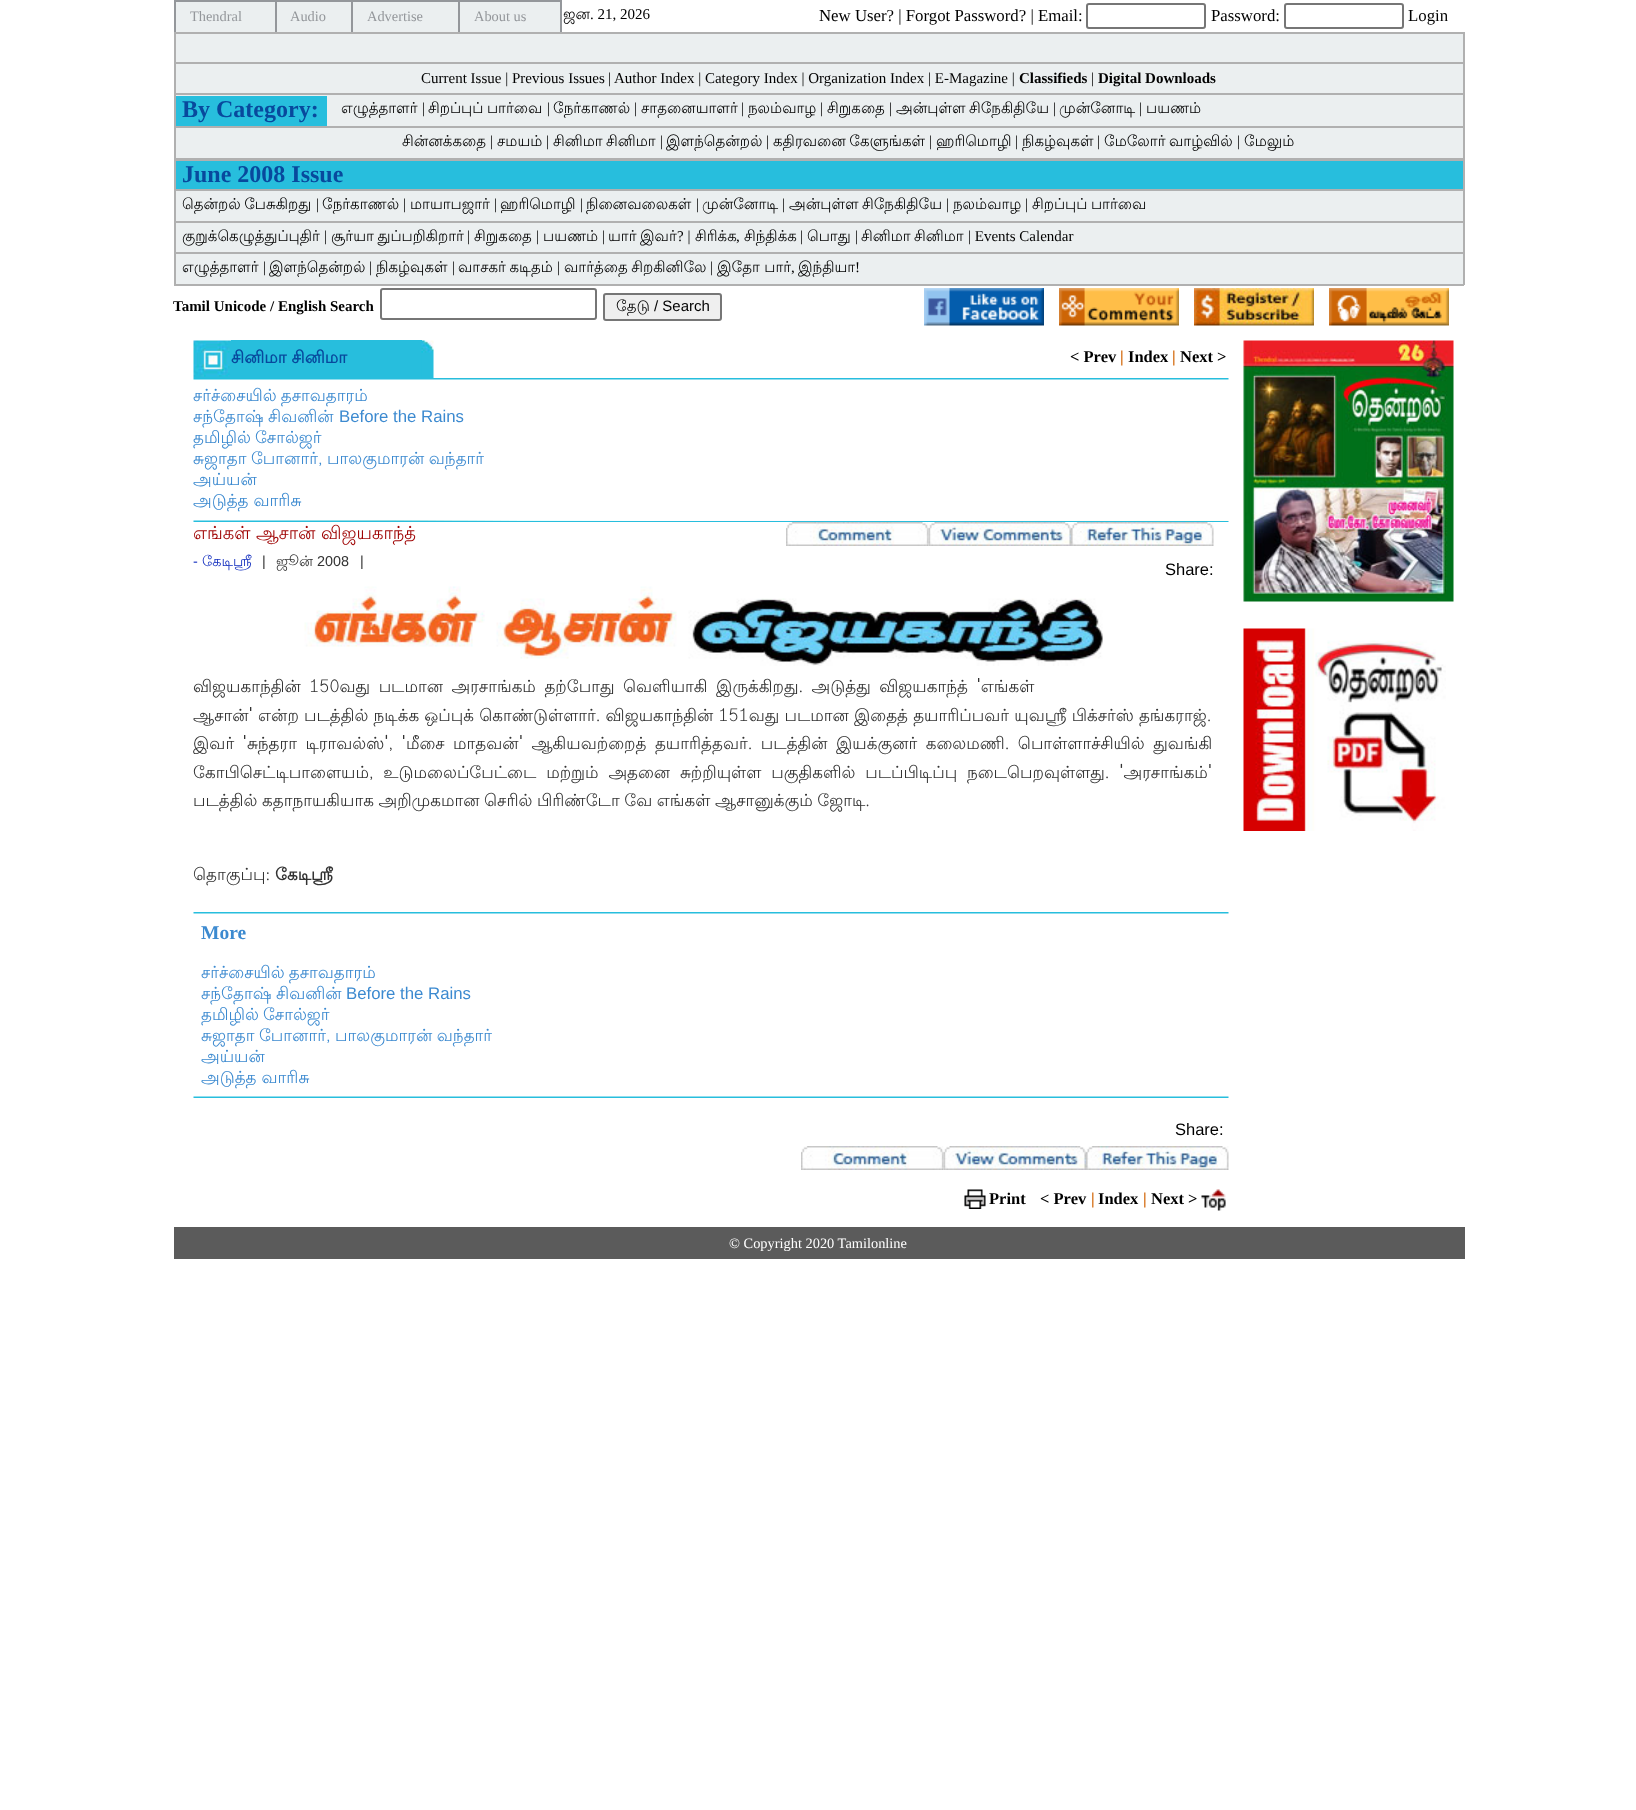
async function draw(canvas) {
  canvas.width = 1636;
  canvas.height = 1810;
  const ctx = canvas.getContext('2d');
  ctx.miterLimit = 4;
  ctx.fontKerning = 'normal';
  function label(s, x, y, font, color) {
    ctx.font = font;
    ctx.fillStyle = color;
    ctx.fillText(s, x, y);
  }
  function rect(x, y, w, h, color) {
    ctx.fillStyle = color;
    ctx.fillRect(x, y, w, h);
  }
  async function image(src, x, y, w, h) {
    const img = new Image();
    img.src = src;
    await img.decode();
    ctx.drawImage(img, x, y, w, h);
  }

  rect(0, 0, 1636, 1810, '#fff');
  rect(176, 2, 384, 30, '#ebeff0');
  rect(174, 0, 387, 2, '#94979b');
  rect(275, 0, 2, 32, '#94979b');
  rect(174, 0, 2, 32, '#94979b');
  label('Thendral', 190, 21, '14.4px Liberation Serif', '#94979b');
  rect(351, 0, 2, 32, '#94979b');
  label('Audio', 290, 21, '14.4px Liberation Serif', '#94979b');
  rect(458, 0, 2, 32, '#94979b');
  label('Advertise', 367, 21, '14.4px Liberation Serif', '#94979b');
  rect(560, 0, 2, 32, '#94979b');
  label('About us', 474, 21, '14.4px Liberation Serif', '#94979b');
  label('ஜன', 563, 19, '15px Lohit Tamil', '#000');
  label('. 21, 2026', 590, 19, '15px Liberation Serif', '#000');
  label('New User? | Forgot Password? | Email:', 819, 21, '16.8px Liberation Serif', '#000');
  ctx.beginPath();
  ctx.roundRect(1087, 4, 118, 24, 2);
  ctx.strokeStyle = '#767676';
  ctx.lineWidth = 2;
  ctx.stroke();
  label('Password:', 1211, 21, '16.8px Liberation Serif', '#000');
  ctx.beginPath();
  ctx.roundRect(1285, 4, 118, 24, 2);
  ctx.stroke();
  label('Login', 1408, 21, '16.8px Liberation Serif', '#000');
  rect(176, 34, 1287, 124, '#ebeff0');
  rect(174, 32, 1290, 2, '#b0b0b0');
  rect(1463, 32, 2, 127, '#b0b0b0');
  rect(174, 158, 1290, 3, '#b0b0b0');
  rect(174, 62, 1289, 2, '#b0b0b0');
  rect(174, 93, 1289, 2, '#b0b0b0');
  rect(174, 126, 1289, 2, '#b0b0b0');
  rect(174, 32, 2, 127, '#b0b0b0');
  label('Current Issue | Previous Issues', 421, 83, '15px Liberation Serif', '#000');
  label('|', 608, 83, '15px Liberation Serif', '#000');
  label('Author Index | Category Index | Organization Index | E-Magazine |', 614, 83, '15px Liberation Serif', '#000');
  label('Classifieds', 1019, 83, 'bold 15px Liberation Serif', '#000');
  label('|', 1091, 83, '15px Liberation Serif', '#000');
  label('Digital Downloads', 1098, 83, 'bold 15px Liberation Serif', '#000');
  rect(176, 96, 151, 30, '#27bedd');
  label('By Category:', 182, 117, 'bold 24px Liberation Serif', '#08499d');
  label('எழுத்தாளர்', 341, 113, '15px Lohit Tamil', '#000');
  label('|', 422, 113, '15px Liberation Serif', '#000');
  ctx.wordSpacing = '-1px';
  label('சிறப்புப் பார்வை', 428, 113, '15px Lohit Tamil', '#000');
  ctx.wordSpacing = '0px';
  label('|', 547, 113, '15px Liberation Serif', '#000');
  label('நேர்காணல்', 553, 113, '15px Lohit Tamil', '#000');
  label('|', 634, 113, '15px Liberation Serif', '#000');
  label('சாதனையாளர்', 641, 113, '15px Lohit Tamil', '#000');
  label('|', 741, 113, '15px Liberation Serif', '#000');
  label('நலம்வாழ', 748, 113, '15px Lohit Tamil', '#000');
  label('|', 820, 113, '15px Liberation Serif', '#000');
  label('சிறுகதை', 827, 113, '15px Lohit Tamil', '#000');
  label('|', 889, 113, '15px Liberation Serif', '#000');
  ctx.wordSpacing = '-1px';
  label('அன்புள்ள சிநேகிதியே', 896, 113, '15px Lohit Tamil', '#000');
  ctx.wordSpacing = '0px';
  label('|', 1053, 113, '15px Liberation Serif', '#000');
  label('முன்னோடி', 1059, 113, '15px Lohit Tamil', '#000');
  label('|', 1139, 113, '15px Liberation Serif', '#000');
  label('பயணம்', 1146, 113, '15px Lohit Tamil', '#000');
  label('சின்னக்கதை', 402, 146, '15px Lohit Tamil', '#000');
  label('|', 490, 146, '15px Liberation Serif', '#000');
  label('சமயம்', 497, 146, '15px Lohit Tamil', '#000');
  label('|', 546, 146, '15px Liberation Serif', '#000');
  ctx.wordSpacing = '-1px';
  label('சினிமா சினிமா', 553, 146, '15px Lohit Tamil', '#000');
  ctx.wordSpacing = '0px';
  label('|', 660, 146, '15px Liberation Serif', '#000');
  label('இளந்தென்றல்', 666, 146, '15px Lohit Tamil', '#000');
  label('|', 766, 146, '15px Liberation Serif', '#000');
  ctx.wordSpacing = '-1px';
  label('கதிரவனை கேளுங்கள்', 773, 146, '15px Lohit Tamil', '#000');
  ctx.wordSpacing = '0px';
  label('|', 929, 146, '15px Liberation Serif', '#000');
  label('ஹரிமொழி', 936, 146, '15px Lohit Tamil', '#000');
  label('|', 1015, 146, '15px Liberation Serif', '#000');
  label('நிகழ்வுகள்', 1022, 146, '15px Lohit Tamil', '#000');
  label('|', 1097, 146, '15px Liberation Serif', '#000');
  ctx.wordSpacing = '-1px';
  label('மேலோர் வாழ்வில்', 1104, 146, '15px Lohit Tamil', '#000');
  ctx.wordSpacing = '0px';
  label('|', 1237, 146, '15px Liberation Serif', '#000');
  label('மேலும்', 1244, 146, '15px Lohit Tamil', '#000');
  rect(176, 191, 1287, 93, '#ebeff0');
  rect(1463, 159, 2, 126, '#b0b0b0');
  rect(174, 284, 1290, 2, '#b0b0b0');
  rect(174, 189, 1289, 2, '#b0b0b0');
  rect(174, 221, 1289, 2, '#b0b0b0');
  rect(174, 252, 1289, 2, '#b0b0b0');
  rect(174, 159, 2, 126, '#b0b0b0');
  rect(176, 161, 1287, 28, '#27bedd');
  label('June 2008 Issue', 182, 182, 'bold 24px Liberation Serif', '#08499d');
  ctx.wordSpacing = '-1px';
  label('தென்றல் பேசுகிறது', 182, 209, '15px Lohit Tamil', '#000');
  ctx.wordSpacing = '0px';
  label('|', 316, 209, '15px Liberation Serif', '#000');
  label('நேர்காணல்', 322, 209, '15px Lohit Tamil', '#000');
  label('|', 403, 209, '15px Liberation Serif', '#000');
  label('மாயாபஜார்', 410, 209, '15px Lohit Tamil', '#000');
  label('|', 494, 209, '15px Liberation Serif', '#000');
  label('ஹரிமொழி', 500, 209, '15px Lohit Tamil', '#000');
  label('|', 580, 209, '15px Liberation Serif', '#000');
  label('நினைவலைகள்', 586, 209, '15px Lohit Tamil', '#000');
  label('|', 696, 209, '15px Liberation Serif', '#000');
  label('முன்னோடி', 702, 209, '15px Lohit Tamil', '#000');
  label('|', 782, 209, '15px Liberation Serif', '#000');
  ctx.wordSpacing = '-1px';
  label('அன்புள்ள சிநேகிதியே', 789, 209, '15px Lohit Tamil', '#000');
  ctx.wordSpacing = '0px';
  label('|', 946, 209, '15px Liberation Serif', '#000');
  label('நலம்வாழ', 953, 209, '15px Lohit Tamil', '#000');
  label('|', 1025, 209, '15px Liberation Serif', '#000');
  ctx.wordSpacing = '-1px';
  label('சிறப்புப் பார்வை', 1032, 209, '15px Lohit Tamil', '#000');
  ctx.wordSpacing = '0px';
  label('குறுக்கெழுத்துப்புதிர்', 182, 241, '15px Lohit Tamil', '#000');
  label('|', 324, 241, '15px Liberation Serif', '#000');
  ctx.wordSpacing = '-1px';
  label('சூர்யா துப்பறிகிறார்', 331, 241, '15px Lohit Tamil', '#000');
  ctx.wordSpacing = '0px';
  label('|', 467, 241, '15px Liberation Serif', '#000');
  label('சிறுகதை', 474, 241, '15px Lohit Tamil', '#000');
  label('|', 536, 241, '15px Liberation Serif', '#000');
  label('பயணம்', 543, 241, '15px Lohit Tamil', '#000');
  label('|', 602, 241, '15px Liberation Serif', '#000');
  ctx.wordSpacing = '-1px';
  label('யார் இவர்', 608, 241, '15px Lohit Tamil', '#000');
  ctx.wordSpacing = '0px';
  label('? |', 677, 241, '15px Liberation Serif', '#000');
  label('சிரிக்க', 695, 241, '15px Lohit Tamil', '#000');
  label(',', 736, 241, '15px Liberation Serif', '#000');
  label('சிந்திக்க', 744, 241, '15px Lohit Tamil', '#000');
  label('|', 800, 241, '15px Liberation Serif', '#000');
  label('பொது', 807, 241, '15px Lohit Tamil', '#000');
  label('|', 855, 241, '15px Liberation Serif', '#000');
  ctx.wordSpacing = '-1px';
  label('சினிமா சினிமா', 861, 241, '15px Lohit Tamil', '#000');
  ctx.wordSpacing = '0px';
  label('| Events Calendar', 968, 241, '15px Liberation Serif', '#000');
  label('எழுத்தாளர்', 182, 272, '15px Lohit Tamil', '#000');
  label('|', 263, 272, '15px Liberation Serif', '#000');
  label('இளந்தென்றல்', 269, 272, '15px Lohit Tamil', '#000');
  label('|', 369, 272, '15px Liberation Serif', '#000');
  label('நிகழ்வுகள்', 376, 272, '15px Lohit Tamil', '#000');
  label('|', 452, 272, '15px Liberation Serif', '#000');
  ctx.wordSpacing = '-1px';
  label('வாசகர் கடிதம்', 458, 272, '15px Lohit Tamil', '#000');
  ctx.wordSpacing = '0px';
  label('|', 557, 272, '15px Liberation Serif', '#000');
  ctx.wordSpacing = '-1px';
  label('வார்த்தை சிறகினிலே', 564, 272, '15px Lohit Tamil', '#000');
  ctx.wordSpacing = '0px';
  label('|', 710, 272, '15px Liberation Serif', '#000');
  label('இதோ பார்', 717, 272, '15px Lohit Tamil', '#000');
  label(',', 791, 272, '15px Liberation Serif', '#000');
  label('இந்தியா', 798, 272, '15px Lohit Tamil', '#000');
  label('!', 855, 272, '15px Liberation Serif', '#000');
  label('Tamil Unicode / English Search', 173, 311, 'bold 15px Liberation Serif', '#000');
  ctx.beginPath();
  ctx.roundRect(381, 289, 215, 30, 2);
  ctx.stroke();
  ctx.fillStyle = '#efefef';
  ctx.beginPath();
  ctx.roundRect(604, 294, 117, 26, 2);
  ctx.fill();
  ctx.stroke();
  label('தேடு', 616, 311, '15px Lohit Tamil', '#000');
  label('/ Search', 654, 311, '15px Liberation Sans', '#000');
  await image('assets/img1.png', 924, 288, 120, 38);
  await image('assets/img2.png', 1059, 288, 120, 38);
  await image('assets/img3.png', 1194, 288, 120, 38);
  await image('assets/img4.png', 1329, 288, 120, 38);
  await image('assets/img5.png', 193, 340, 38, 38);
  rect(231, 340, 191, 38, '#27bedd');
  label('சினிமா சினிமா', 231, 363, 'bold 16.8px Lohit Tamil', '#08499d');
  await image('assets/img6.png', 421, 340, 13, 38);
  label('< Prev', 1070, 362, 'bold 16.5px Liberation Serif', '#000');
  label('|', 1120, 362, 'bold 16.5px Liberation Serif', '#d16200');
  label('Index', 1128, 362, 'bold 16.5px Liberation Serif', '#000');
  label('|', 1172, 362, 'bold 16.5px Liberation Serif', '#d16200');
  label('Next >', 1180, 362, 'bold 16.5px Liberation Serif', '#000');
  await image('assets/img7.png', 193, 378, 1036, 2);
  ctx.wordSpacing = '-1px';
  label('சர்ச்சையில் தசாவதாரம்', 193, 401, '16.8px Lohit Tamil', '#3c8ad0');
  ctx.wordSpacing = '0px';
  label('சந்தோஷ்', 193, 422, '16.8px Lohit Tamil', '#3c8ad0');
  label('சிவனின்', 268, 422, '16.8px Lohit Tamil', '#3c8ad0');
  label('Before the Rains', 339, 422, '16.8px Liberation Sans', '#3c8ad0');
  ctx.wordSpacing = '-1px';
  label('தமிழில் சோல்ஜர்', 193, 443, '16.8px Lohit Tamil', '#3c8ad0');
  ctx.wordSpacing = '-0.5px';
  label('சுஜாதா போனார், பாலகுமாரன் வந்தார்', 193, 464, '16.8px Lohit Tamil', '#3c8ad0');
  ctx.wordSpacing = '0px';
  label('அய்யன்', 193, 485, '16.8px Lohit Tamil', '#3c8ad0');
  label('அடுத்த வாரிசு', 193, 506, '16.8px Lohit Tamil', '#3c8ad0');
  await image('assets/img8.png', 193, 520, 1036, 2);
  label('எங்கள் ஆசான் விஜயகாந்த்', 193, 539, '18px Lohit Tamil', '#9e0000');
  await image('assets/img9.png', 786, 522, 143, 24);
  await image('assets/img10.png', 928, 522, 143, 24);
  await image('assets/img11.png', 1071, 522, 143, 24);
  label('-', 193, 566, '14.4px Liberation Sans', '#132fbf');
  label('கேடிஸ்ரீ', 202, 566, '14.4px Lohit Tamil', '#132fbf');
  label('|', 262, 566, '14.4px Liberation Sans', '#333');
  label('ஜூன்', 276, 566, '14.4px Lohit Tamil', '#333');
  label('2008', 317, 566, '14.4px Liberation Sans', '#333');
  label('|', 360, 566, '14.4px Liberation Sans', '#333');
  label('Share:', 1165, 575, '16.5px Liberation Sans', '#000');
  await image('assets/img12.png', 304, 586, 799, 80);
  ctx.wordSpacing = '3.5px';
  label('விஜயகாந்தின் 150வது படமான அரசாங்கம் தற்போது வெளியாகி இருக்கிறது. அடுத்து விஜயகாந்த் \'எங்கள்', 193, 692, '16.8px Lohit Tamil', '#333');
  ctx.wordSpacing = '0.1px';
  label('ஆசான்\' என்ற படத்தில் நடிக்க ஒப்புக் கொண்டுள்ளார். விஜயகாந்தின் 151வது படமான இதைத் தயாரிப்பவர் யுவஸ்ரீ பிக்சர்ஸ் தங்கராஜ்.', 193, 721, '16.8px Lohit Tamil', '#333');
  ctx.wordSpacing = '3.4px';
  label('இவர் \'சுந்தரா டிராவல்ஸ்\', \'மீசை மாதவன்\' ஆகியவற்றைத் தயாரித்தவர். படத்தின் இயக்குனர் கலைமணி. பொள்ளாச்சியில் துவங்கி', 193, 749, '16.8px Lohit Tamil', '#333');
  ctx.wordSpacing = '4.75px';
  label('கோபிசெட்டிபாளையம், உடுமலைப்பேட்டை மற்றும் அதனை சுற்றியுள்ள பகுதிகளில் படப்பிடிப்பு நடைபெறவுள்ளது. \'அரசாங்கம்\'', 193, 778, '16.8px Lohit Tamil', '#333');
  ctx.wordSpacing = '-0.5px';
  label('படத்தில் கதாநாயகியாக அறிமுகமான செரில் பிரிண்டோ வே எங்கள் ஆசானுக்கும் ஜோடி.', 193, 806, '16.8px Lohit Tamil', '#333');
  ctx.wordSpacing = '0px';
  label('தொகுப்பு:', 193, 880, '16.8px Lohit Tamil', '#333');
  label('கேடிஸ்ரீ', 275, 880, 'bold 16.8px Lohit Tamil', '#333');
  await image('assets/img13.png', 193, 912, 1036, 2);
  label('More', 201, 939, 'bold 19.5px Liberation Serif', '#3c8ad0');
  ctx.wordSpacing = '-1px';
  label('சர்ச்சையில் தசாவதாரம்', 201, 978, '16.8px Lohit Tamil', '#3c8ad0');
  ctx.wordSpacing = '0px';
  label('சந்தோஷ்', 201, 999, '16.8px Lohit Tamil', '#3c8ad0');
  label('சிவனின்', 276, 999, '16.8px Lohit Tamil', '#3c8ad0');
  label('Before the Rains', 346, 999, '16.8px Liberation Sans', '#3c8ad0');
  ctx.wordSpacing = '-1px';
  label('தமிழில் சோல்ஜர்', 201, 1020, '16.8px Lohit Tamil', '#3c8ad0');
  ctx.wordSpacing = '-0.5px';
  label('சுஜாதா போனார், பாலகுமாரன் வந்தார்', 201, 1041, '16.8px Lohit Tamil', '#3c8ad0');
  ctx.wordSpacing = '0px';
  label('அய்யன்', 201, 1062, '16.8px Lohit Tamil', '#3c8ad0');
  label('அடுத்த வாரிசு', 201, 1083, '16.8px Lohit Tamil', '#3c8ad0');
  await image('assets/img14.png', 193, 1096, 1036, 2);
  label('Share:', 1175, 1135, '16.5px Liberation Sans', '#000');
  await image('assets/img9.png', 801, 1146, 143, 24);
  await image('assets/img10.png', 943, 1146, 143, 24);
  await image('assets/img11.png', 1086, 1146, 143, 24);
  await image('assets/img15.png', 964, 1189, 22, 20);
  label('Print', 989, 1204, 'bold 16.5px Liberation Serif', '#000');
  label('< Prev', 1040, 1204, 'bold 16.5px Liberation Serif', '#000');
  label('|', 1091, 1204, 'bold 16.5px Liberation Serif', '#d16200');
  label('Index', 1098, 1204, 'bold 16.5px Liberation Serif', '#000');
  label('|', 1143, 1204, 'bold 16.5px Liberation Serif', '#d16200');
  label('Next >', 1151, 1204, 'bold 16.5px Liberation Serif', '#000');
  await image('assets/img16.png', 1201, 1189, 25, 22);
  await image('assets/img17.png', 1243, 340, 211, 262);
  await image('assets/img18.png', 1243, 628, 203, 203);
  rect(174, 1227, 1291, 32, '#5b5b5b');
  label('© Copyright 2020 Tamilonline', 729, 1248, '14.4px Liberation Serif', '#fff');
}

draw(document.querySelector('canvas'));
